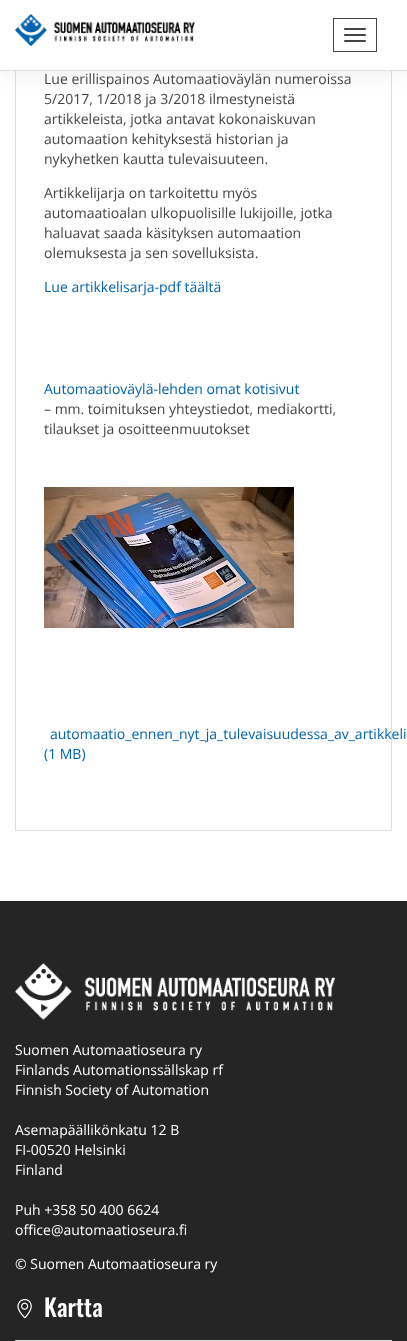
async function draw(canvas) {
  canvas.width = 407;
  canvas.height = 1341;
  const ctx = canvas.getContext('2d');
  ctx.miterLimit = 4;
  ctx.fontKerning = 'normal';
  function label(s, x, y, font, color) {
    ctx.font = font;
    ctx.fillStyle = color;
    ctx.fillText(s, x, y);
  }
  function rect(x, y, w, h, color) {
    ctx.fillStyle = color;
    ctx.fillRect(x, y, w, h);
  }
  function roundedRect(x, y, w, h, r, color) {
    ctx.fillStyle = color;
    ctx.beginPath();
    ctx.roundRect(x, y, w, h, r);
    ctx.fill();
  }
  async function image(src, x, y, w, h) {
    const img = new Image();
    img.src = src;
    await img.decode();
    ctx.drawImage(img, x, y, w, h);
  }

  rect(0, 0, 407, 1341, '#fff');
  ctx.strokeStyle = '#dfdfdf';
  ctx.strokeRect(15.5, -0.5, 376, 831);
  ctx.fillStyle = '#0000000d';
  ctx.filter = 'blur(11px)';
  ctx.beginPath();
  ctx.rect(0, 6, 407, 71);
  ctx.fill();
  ctx.filter = 'none';
  rect(0, 0, 407, 70, '#fff');
  rect(0, 70, 407, 1, '#dfdfdf');
  await image('assets/img1.png', 15, 14, 180, 32);
  ctx.strokeStyle = '#444';
  ctx.strokeRect(333.5, 18.5, 43, 33);
  roundedRect(344, 28, 22, 2, 1, '#444');
  roundedRect(344, 34, 22, 2, 1, '#444');
  roundedRect(344, 40, 22, 2, 1, '#444');
  label('Lue erillispainos Automaatioväylän numeroissa', 44, 84, '14px Open Sans', '#444');
  label('5/2017, 1/2018 ja 3/2018 ilmestyneistä', 44, 104, '14px Open Sans', '#444');
  label('artikkeleista, jotka antavat kokonaiskuvan', 44, 124, '14px Open Sans', '#444');
  label('automaation kehityksestä historian ja', 44, 144, '14px Open Sans', '#444');
  label('nykyhetken kautta tulevaisuuteen.', 44, 164, '14px Open Sans', '#444');
  label('Artikkelijarja on tarkoitettu myös', 44, 198, '14px Open Sans', '#444');
  label('automaatioalan ulkopuolisille lukijoille, jotka', 44, 218, '14px Open Sans', '#444');
  label('haluavat saada käsityksen automaation', 44, 238, '14px Open Sans', '#444');
  label('olemuksesta ja sen sovelluksista.', 44, 258, '14px Open Sans', '#444');
  label('Lue artikkelisarja-pdf täältä', 44, 292, '14px Open Sans', '#0062ae');
  label('Automaatioväylä-lehden omat kotisivut', 44, 394, '14px Open Sans', '#0062ae');
  label('– mm. toimituksen yhteystiedot, mediakortti,', 44, 414, '14px Open Sans', '#444');
  label('tilaukset ja osoitteenmuutokset', 44, 434, '14px Open Sans', '#444');
  await image('assets/img2.png', 44, 487, 250, 141);
  label('automaatio_ennen_nyt_ja_tulevaisuudessa_av_artikkeli', 50, 739, '14px Open Sans', '#0062ae');
  label('(1 MB)', 44, 759, '14px Open Sans', '#0062ae');
  rect(0, 901, 407, 440, '#252525');
  await image('assets/img3.png', 15, 963, 320, 57);
  label('Suomen Automaatioseura ry', 15, 1055, '14px Open Sans', '#fff');
  label('Finlands Automationssällskap rf', 15, 1075, '14px Open Sans', '#fff');
  label('Finnish Society of Automation', 15, 1095, '14px Open Sans', '#fff');
  label('Asemapäällikönkatu 12 B', 15, 1135, '14px Open Sans', '#fff');
  label('FI-00520 Helsinki', 15, 1155, '14px Open Sans', '#fff');
  label('Finland', 15, 1175, '14px Open Sans', '#fff');
  label('Puh +358 50 400 6624', 15, 1215, '14px Open Sans', '#fff');
  label('office@automaatioseura.fi', 15, 1235, '14px Open Sans', '#fff');
  label('© Suomen Automaatioseura ry', 15, 1269, '14px Open Sans', '#fff');
  await image('assets/img4.png', 17, 1299, 15, 20);
  label('Kartta', 44, 1317, '500 24px Oswald', '#fff');
  rect(15, 1340, 377, 1, '#e5e3df');
}

draw(document.querySelector('canvas'));
